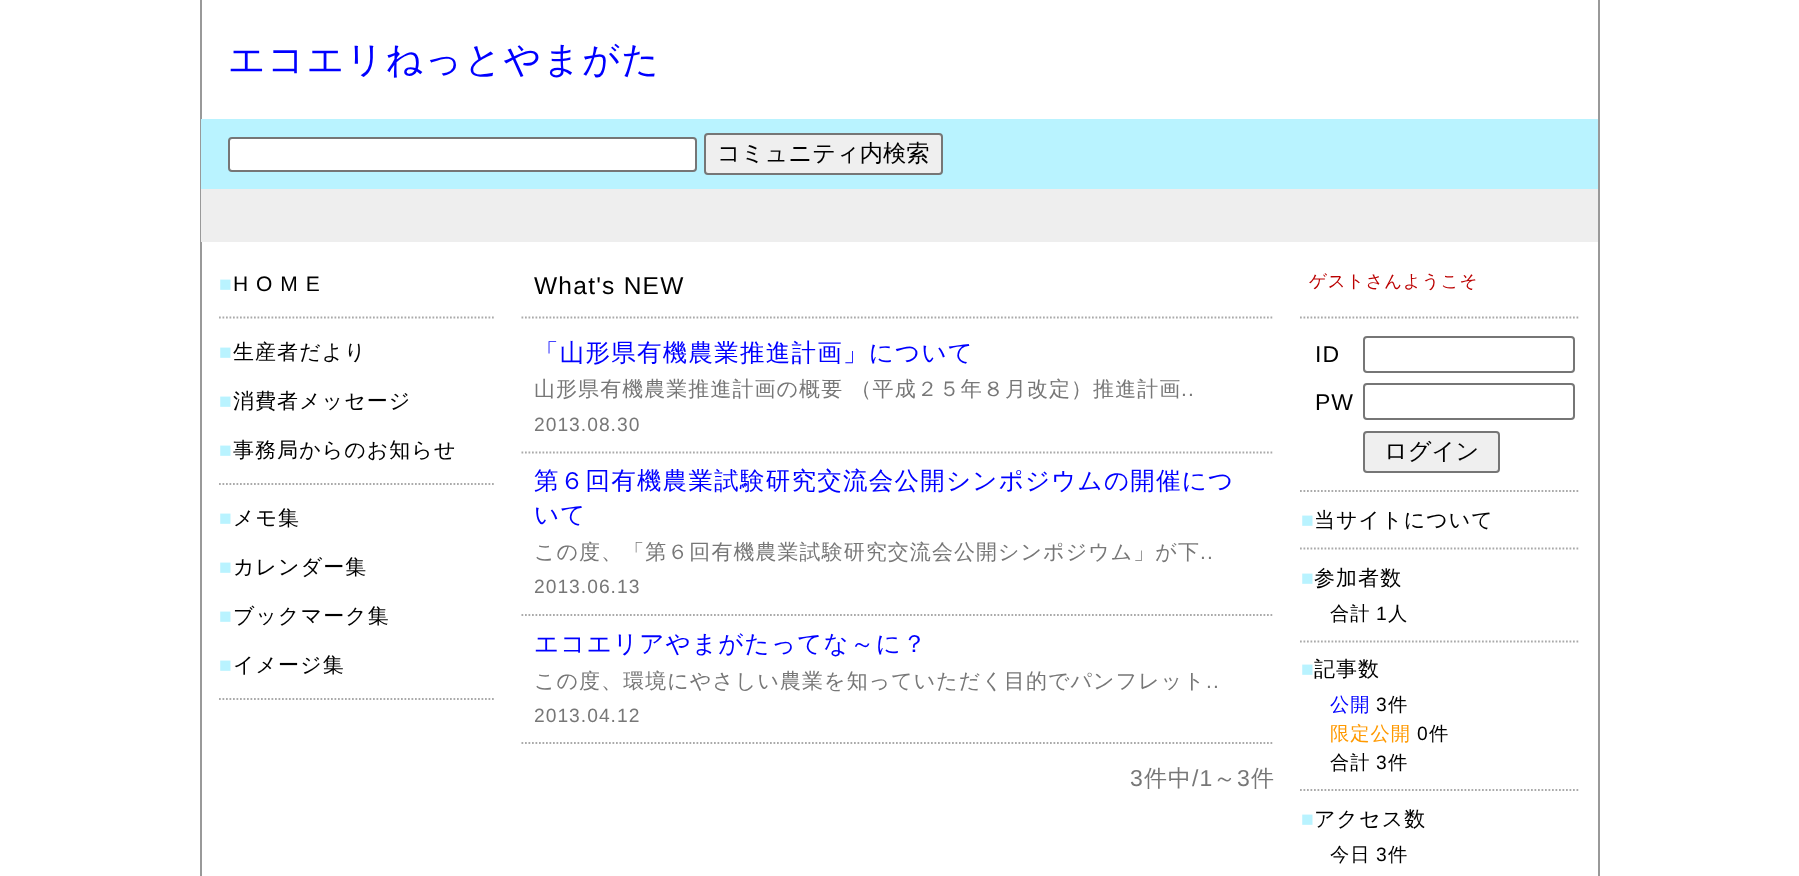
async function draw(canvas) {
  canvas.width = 1799;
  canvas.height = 876;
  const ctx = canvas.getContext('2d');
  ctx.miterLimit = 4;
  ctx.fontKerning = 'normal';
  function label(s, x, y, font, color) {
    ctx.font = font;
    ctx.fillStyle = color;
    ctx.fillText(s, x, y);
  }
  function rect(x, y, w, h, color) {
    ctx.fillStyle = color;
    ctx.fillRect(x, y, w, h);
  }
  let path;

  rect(0, 0, 1799, 876, '#fff');
  rect(1598, 0, 2, 876, '#999');
  rect(200, 0, 2, 876, '#999');
  ctx.letterSpacing = '1.75px';
  label('エコエリねっとやまがた', 228, 72, '500 36.75px WenQuanYi Zen Hei', '#00f');
  rect(201, 119, 1397, 70, '#b9f3ff');
  ctx.fillStyle = '#fff';
  ctx.beginPath();
  ctx.roundRect(229, 138, 467, 33, 3);
  ctx.fill();
  ctx.strokeStyle = '#767676';
  ctx.lineWidth = 2;
  ctx.stroke();
  ctx.fillStyle = '#efefef';
  ctx.beginPath();
  ctx.roundRect(705, 134, 237, 40, 3);
  ctx.fill();
  ctx.stroke();
  ctx.letterSpacing = '0px';
  label('コミュニティ内検索', 717, 161, '500 23.25px WenQuanYi Zen Hei', '#000');
  rect(201, 189, 1397, 53, '#eee');
  ctx.letterSpacing = '1.05px';
  label('■', 219, 291, '21px Liberation Sans', '#b9f3ff');
  label('H O M E', 233, 291, '21px Liberation Sans', '#000');
  path = new Path2D('M219 317.5H495');
  ctx.strokeStyle = '#aaa';
  ctx.lineWidth = 1.8;
  ctx.setLineDash([1.75, 1.75]);
  ctx.stroke(path);
  label('■', 219, 359, '21px Liberation Sans', '#b9f3ff');
  label('生産者だより', 233, 359, '500 21px WenQuanYi Zen Hei', '#000');
  label('■', 219, 408, '21px Liberation Sans', '#b9f3ff');
  label('消費者メッセージ', 233, 408, '500 21px WenQuanYi Zen Hei', '#000');
  label('■', 219, 457, '21px Liberation Sans', '#b9f3ff');
  label('事務局からのお知らせ', 233, 457, '500 21px WenQuanYi Zen Hei', '#000');
  path = new Path2D('M219 484H495');
  ctx.stroke(path);
  label('■', 219, 525, '21px Liberation Sans', '#b9f3ff');
  label('メモ集', 233, 525, '500 21px WenQuanYi Zen Hei', '#000');
  label('■', 219, 574, '21px Liberation Sans', '#b9f3ff');
  label('カレンダー集', 233, 574, '500 21px WenQuanYi Zen Hei', '#000');
  label('■', 219, 623, '21px Liberation Sans', '#b9f3ff');
  label('ブックマーク集', 233, 623, '500 21px WenQuanYi Zen Hei', '#000');
  label('■', 219, 672, '21px Liberation Sans', '#b9f3ff');
  label('イメージ集', 233, 672, '500 21px WenQuanYi Zen Hei', '#000');
  path = new Path2D('M219 699H495');
  ctx.stroke(path);
  path = new Path2D('M521.5 317.5H1274');
  ctx.stroke(path);
  ctx.letterSpacing = '1.25px';
  label('What\'s NEW', 534, 294, '24.5px Liberation Sans', '#000');
  path = new Path2D('M521.5 452.5H1274');
  ctx.stroke(path);
  label('「山形県有機農業推進計画」について', 534, 361, '500 24.5px WenQuanYi Zen Hei', '#00f');
  ctx.letterSpacing = '1.05px';
  label('山形県有機農業推進計画の概要 （平成２５年８月改定）推進計画', 534, 396, '500 21px WenQuanYi Zen Hei', '#777');
  label('..', 1181, 396, '21px Liberation Sans', '#777');
  ctx.letterSpacing = '1px';
  label('2013.08.30', 534, 431, '19.25px Liberation Sans', '#777');
  path = new Path2D('M521.5 615H1274');
  ctx.stroke(path);
  ctx.letterSpacing = '1.25px';
  label('第６回有機農業試験研究交流会公開シンポジウムの開催につ', 534, 489, '500 24.5px WenQuanYi Zen Hei', '#00f');
  label('いて', 534, 523, '500 24.5px WenQuanYi Zen Hei', '#00f');
  ctx.letterSpacing = '1.05px';
  label('この度、「第６回有機農業試験研究交流会公開シンポジウム」が下', 534, 559, '500 21px WenQuanYi Zen Hei', '#777');
  label('..', 1200, 559, '21px Liberation Sans', '#777');
  ctx.letterSpacing = '1px';
  label('2013.06.13', 534, 593, '19.25px Liberation Sans', '#777');
  path = new Path2D('M521.5 743H1274');
  ctx.stroke(path);
  ctx.letterSpacing = '1.25px';
  label('エコエリアやまがたってな～に？', 534, 652, '500 24.5px WenQuanYi Zen Hei', '#00f');
  ctx.letterSpacing = '1.05px';
  label('この度、環境にやさしい農業を知っていただく目的でパンフレット', 534, 688, '500 21px WenQuanYi Zen Hei', '#777');
  label('..', 1206, 688, '21px Liberation Sans', '#777');
  ctx.letterSpacing = '1px';
  label('2013.04.12', 534, 722, '19.25px Liberation Sans', '#777');
  label('3', 1130, 786, '23px Liberation Sans', '#777');
  label('件中', 1144, 786, '500 23px WenQuanYi Zen Hei', '#777');
  label('/1', 1192, 786, '23px Liberation Sans', '#777');
  label('～', 1213, 786, '500 23px WenQuanYi Zen Hei', '#777');
  label('3', 1237, 786, '23px Liberation Sans', '#777');
  label('件', 1251, 786, '500 23px WenQuanYi Zen Hei', '#777');
  ctx.letterSpacing = '0.9px';
  label('ゲストさんようこそ', 1309, 287, '500 17.5px WenQuanYi Zen Hei', '#b00');
  path = new Path2D('M1300 317.5H1580');
  ctx.stroke(path);
  ctx.letterSpacing = '1px';
  label('ID', 1315, 362, '23px Liberation Sans', '#000');
  ctx.beginPath();
  ctx.roundRect(1364, 337, 210, 35, 3);
  ctx.strokeStyle = '#767676';
  ctx.lineWidth = 2;
  ctx.setLineDash([]);
  ctx.stroke();
  label('PW', 1315, 410, '23px Liberation Sans', '#000');
  ctx.beginPath();
  ctx.roundRect(1364, 384, 210, 35, 3);
  ctx.stroke();
  ctx.fillStyle = '#efefef';
  ctx.beginPath();
  ctx.roundRect(1364, 432, 135, 40, 3);
  ctx.fill();
  ctx.stroke();
  ctx.letterSpacing = '0px';
  label('ログイン', 1384, 459, '500 23.25px WenQuanYi Zen Hei', '#000');
  path = new Path2D('M1300 491H1580');
  ctx.strokeStyle = '#aaa';
  ctx.lineWidth = 1.8;
  ctx.setLineDash([1.75, 1.75]);
  ctx.stroke(path);
  ctx.letterSpacing = '1.05px';
  label('■', 1301, 527, '21px Liberation Sans', '#b9f3ff');
  label('当サイトについて', 1314, 527, '500 21px WenQuanYi Zen Hei', '#000');
  path = new Path2D('M1300 548.5H1580');
  ctx.stroke(path);
  label('■', 1301, 585, '21px Liberation Sans', '#b9f3ff');
  label('参加者数', 1314, 585, '500 21px WenQuanYi Zen Hei', '#000');
  ctx.letterSpacing = '1px';
  label('合計', 1330, 620, '500 19.25px WenQuanYi Zen Hei', '#000');
  label('1', 1376, 620, '19.25px Liberation Sans', '#000');
  label('人', 1388, 620, '500 19.25px WenQuanYi Zen Hei', '#000');
  path = new Path2D('M1300 641.5H1580');
  ctx.stroke(path);
  ctx.letterSpacing = '1.05px';
  label('■', 1301, 676, '21px Liberation Sans', '#b9f3ff');
  label('記事数', 1314, 676, '500 21px WenQuanYi Zen Hei', '#000');
  ctx.letterSpacing = '1px';
  label('公開', 1330, 711, '500 19.25px WenQuanYi Zen Hei', '#00f');
  label('3', 1376, 711, '19.25px Liberation Sans', '#000');
  label('件', 1388, 711, '500 19.25px WenQuanYi Zen Hei', '#000');
  label('限定公開', 1330, 740, '500 19.25px WenQuanYi Zen Hei', '#f90');
  label('0', 1417, 740, '19.25px Liberation Sans', '#000');
  label('件', 1429, 740, '500 19.25px WenQuanYi Zen Hei', '#000');
  label('合計', 1330, 769, '500 19.25px WenQuanYi Zen Hei', '#000');
  label('3', 1376, 769, '19.25px Liberation Sans', '#000');
  label('件', 1388, 769, '500 19.25px WenQuanYi Zen Hei', '#000');
  path = new Path2D('M1300 790H1580');
  ctx.stroke(path);
  ctx.letterSpacing = '1.05px';
  label('■', 1301, 826, '21px Liberation Sans', '#b9f3ff');
  label('アクセス数', 1314, 826, '500 21px WenQuanYi Zen Hei', '#000');
  ctx.letterSpacing = '1px';
  label('今日', 1330, 861, '500 19.25px WenQuanYi Zen Hei', '#000');
  label('3', 1376, 861, '19.25px Liberation Sans', '#000');
  label('件', 1388, 861, '500 19.25px WenQuanYi Zen Hei', '#000');
}

draw(document.querySelector('canvas'));
